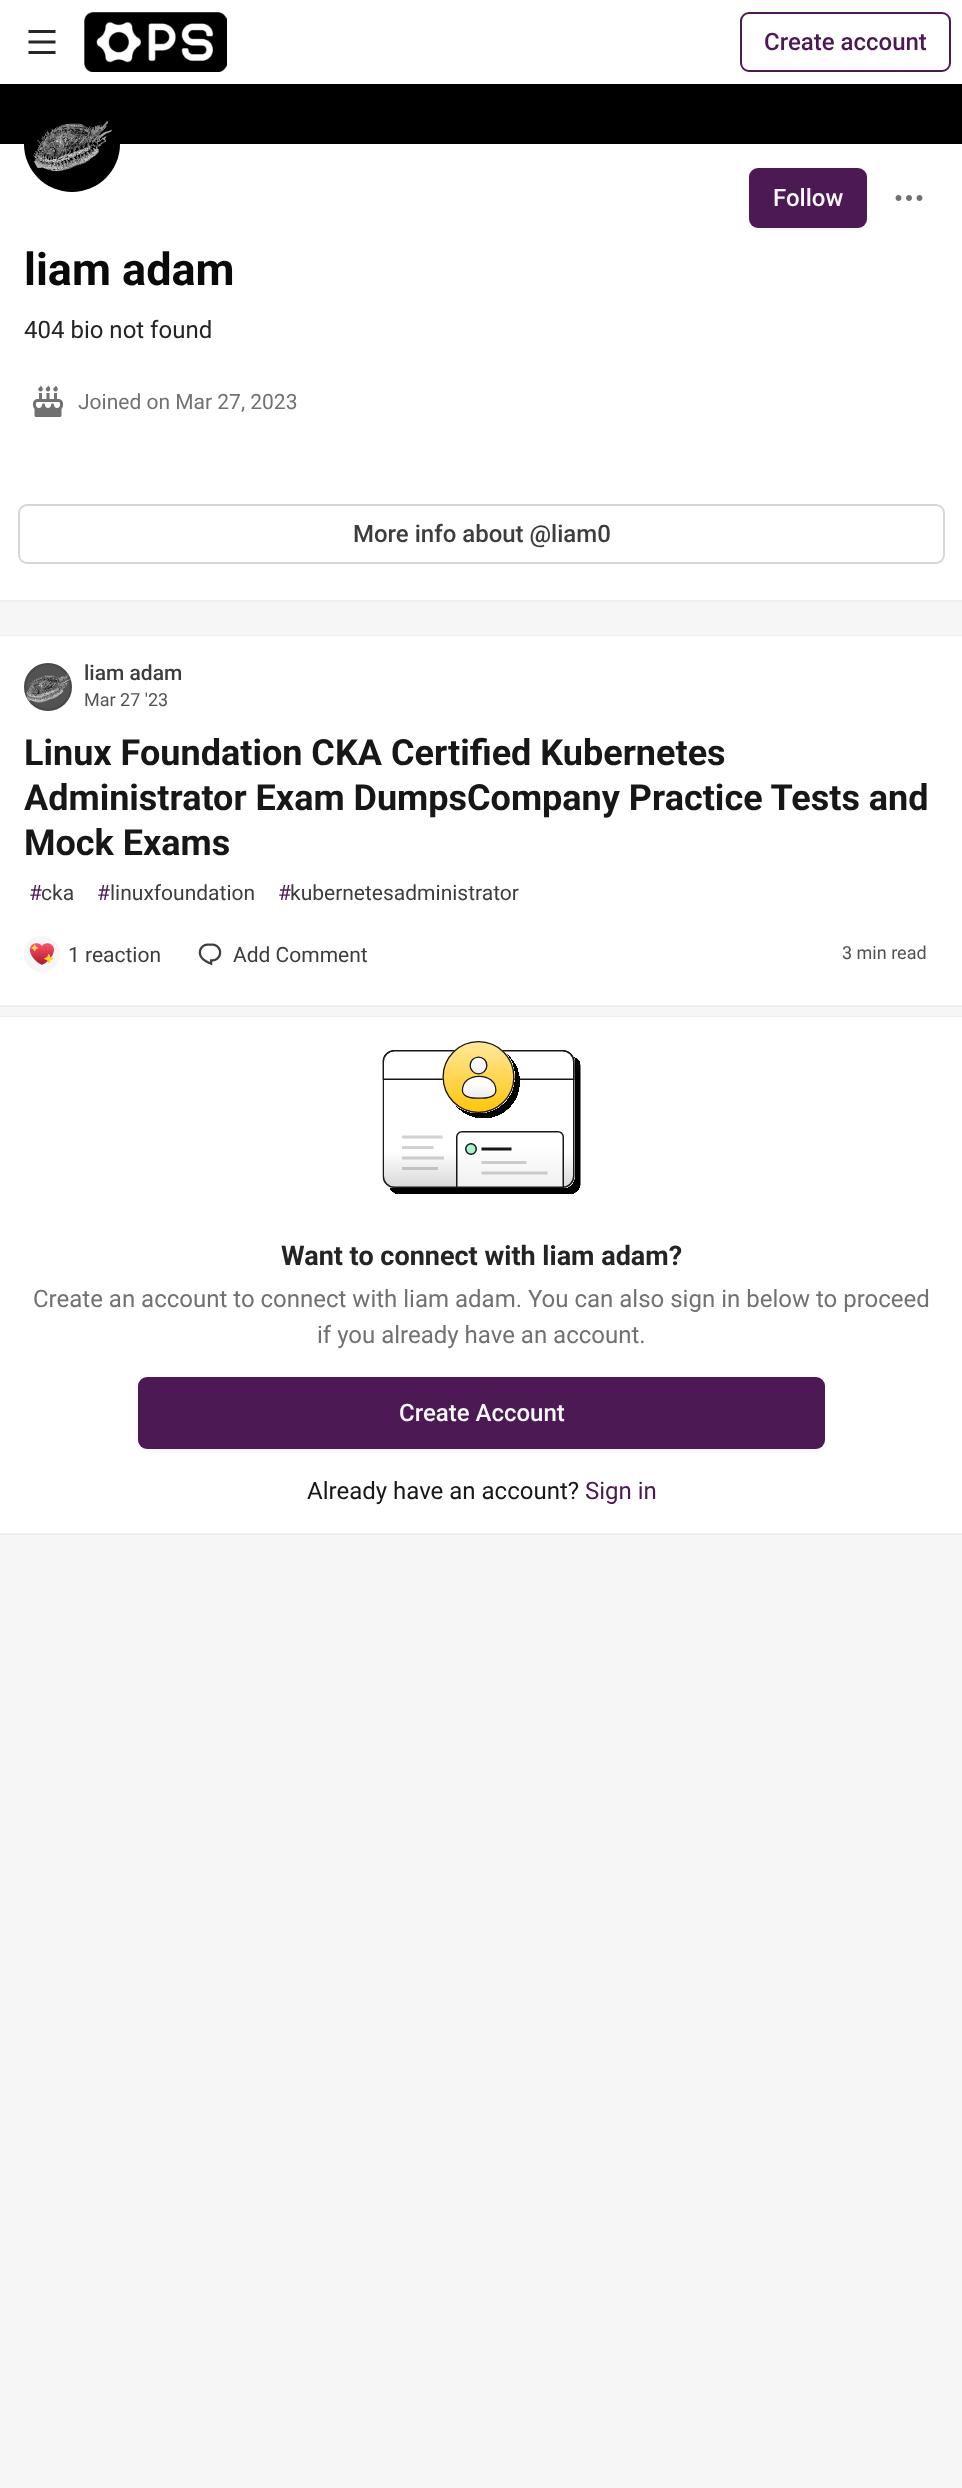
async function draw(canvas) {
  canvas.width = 962;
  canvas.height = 2488;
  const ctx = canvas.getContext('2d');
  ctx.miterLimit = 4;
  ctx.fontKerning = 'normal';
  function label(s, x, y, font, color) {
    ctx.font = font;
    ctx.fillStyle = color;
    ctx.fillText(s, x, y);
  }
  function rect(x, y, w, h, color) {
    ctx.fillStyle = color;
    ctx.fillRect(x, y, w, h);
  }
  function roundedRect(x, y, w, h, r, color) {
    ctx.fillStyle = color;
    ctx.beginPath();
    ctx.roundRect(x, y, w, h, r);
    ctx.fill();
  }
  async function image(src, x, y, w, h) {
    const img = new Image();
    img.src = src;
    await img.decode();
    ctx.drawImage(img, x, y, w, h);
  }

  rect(0, 0, 962, 2488, '#f6f6f6');
  rect(0, 0, 962, 84, '#fff');
  await image('assets/img1.png', 28, 30, 28, 24);
  await image('assets/img2.png', 84, 12, 143, 60);
  ctx.beginPath();
  ctx.roundRect(741, 13, 209, 58, 8);
  ctx.strokeStyle = '#4d1955';
  ctx.lineWidth = 2;
  ctx.stroke();
  label('Create account', 764, 50, '500 24px Roboto', '#4d1955');
  rect(0, 84, 962, 60, '#000');
  ctx.strokeStyle = '#17171708';
  ctx.strokeRect(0, 144, 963, 457);
  rect(0, 144, 962, 456, '#fff');
  ctx.fillStyle = '#000';
  ctx.beginPath();
  ctx.arc(72, 144, 48, 0, 2 * Math.PI);
  ctx.fill();
  await image('assets/img3.png', 33, 120, 79, 52);
  ctx.fillStyle = '#0000000d';
  ctx.filter = 'blur(2px)';
  ctx.beginPath();
  ctx.roundRect(749, 170, 118, 60, 9);
  ctx.fill();
  ctx.filter = 'none';
  roundedRect(749, 168, 118, 60, 9, '#4d1955');
  label('Follow', 773, 206, '500 24px Roboto', '#f9f9f9');
  await image('assets/img4.png', 895, 195, 28, 6);
  label('liam adam', 24, 285, 'bold 45px Roboto', '#090909');
  label('404 bio not found', 24, 338, '24px Roboto', '#242424');
  await image('assets/img5.png', 33, 385, 30, 32);
  label('Joined on Mar 27, 2023', 78, 409, '21px Roboto', '#717171');
  ctx.beginPath();
  ctx.roundRect(19, 505, 925, 58, 8);
  ctx.strokeStyle = '#d6d6d7';
  ctx.stroke();
  label('More info about @liam0', 353, 542, '500 24px Roboto', '#3d3d3d');
  ctx.strokeStyle = '#efefef';
  ctx.strokeRect(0, 636, 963, 370);
  rect(0, 636, 962, 369, '#fff');
  ctx.fillStyle = '#525252';
  ctx.beginPath();
  ctx.arc(48, 687, 24, 0, 2 * Math.PI);
  ctx.fill();
  await image('assets/img6.png', 25, 674, 46, 29);
  ctx.beginPath();
  ctx.arc(48, 687, 23, 0, 2 * Math.PI);
  ctx.strokeStyle = '#17171726';
  ctx.stroke();
  label('liam adam', 84, 680, '500 21px Roboto', '#3d3d3d');
  label('Mar 27 \'23', 84, 706, '18px Roboto', '#525252');
  label('Linux Foundation CKA Certified Kubernetes', 24, 765, 'bold 36px Roboto', '#171717');
  label('Administrator Exam DumpsCompany Practice Tests and', 24, 810, 'bold 36px Roboto', '#171717');
  label('Mock Exams', 24, 855, 'bold 36px Roboto', '#171717');
  label('#', 29, 900, '21px Roboto', '#4d1955');
  label('cka', 41, 900, '21px Roboto', '#3d3d3d');
  label('#', 97, 900, '21px Roboto', '#4d1955');
  label('linuxfoundation', 110, 900, '21px Roboto', '#3d3d3d');
  label('#', 278, 900, '21px Roboto', '#4d1955');
  label('kubernetesadministrator', 290, 900, '21px Roboto', '#3d3d3d');
  ctx.fillStyle = '#f6f6f6';
  ctx.beginPath();
  ctx.arc(42, 954, 19.5, 0, 2 * Math.PI);
  ctx.fill();
  ctx.strokeStyle = '#fff';
  ctx.lineWidth = 3;
  ctx.stroke();
  await image('assets/img7.png', 29, 943, 25, 22);
  label('1 reaction', 68, 962, '21px Roboto', '#3d3d3d');
  await image('assets/img8.png', 198, 943, 24, 23);
  label('Add Comment', 233, 962, '21px Roboto', '#3d3d3d');
  label('3 min read', 842, 959, '18px Roboto', '#525252');
  ctx.strokeStyle = '#efefef';
  ctx.lineWidth = 2;
  ctx.strokeRect(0, 1017, 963, 517);
  rect(0, 1017, 962, 516, '#fff');
  await image('assets/img9.png', 382, 1041, 199, 153);
  label('Want to connect with liam adam?', 281, 1265, 'bold 27px Roboto', '#242424');
  label('Create an account to connect with liam adam. You can also sign in below to proceed', 33, 1307, '24px Roboto', '#717171');
  label('if you already have an account.', 317, 1343, '24px Roboto', '#717171');
  ctx.fillStyle = '#0000000d';
  ctx.filter = 'blur(2px)';
  ctx.beginPath();
  ctx.roundRect(138, 1379, 687, 72, 9);
  ctx.fill();
  ctx.filter = 'none';
  roundedRect(138, 1377, 687, 72, 9, '#4d1955');
  label('Create Account', 399, 1421, '500 24px Roboto', '#f9f9f9');
  label('Already have an account?', 307, 1499, '24px Roboto', '#171717');
  label('Sign in', 585, 1499, '24px Roboto', '#4d1955');
}

draw(document.querySelector('canvas'));
